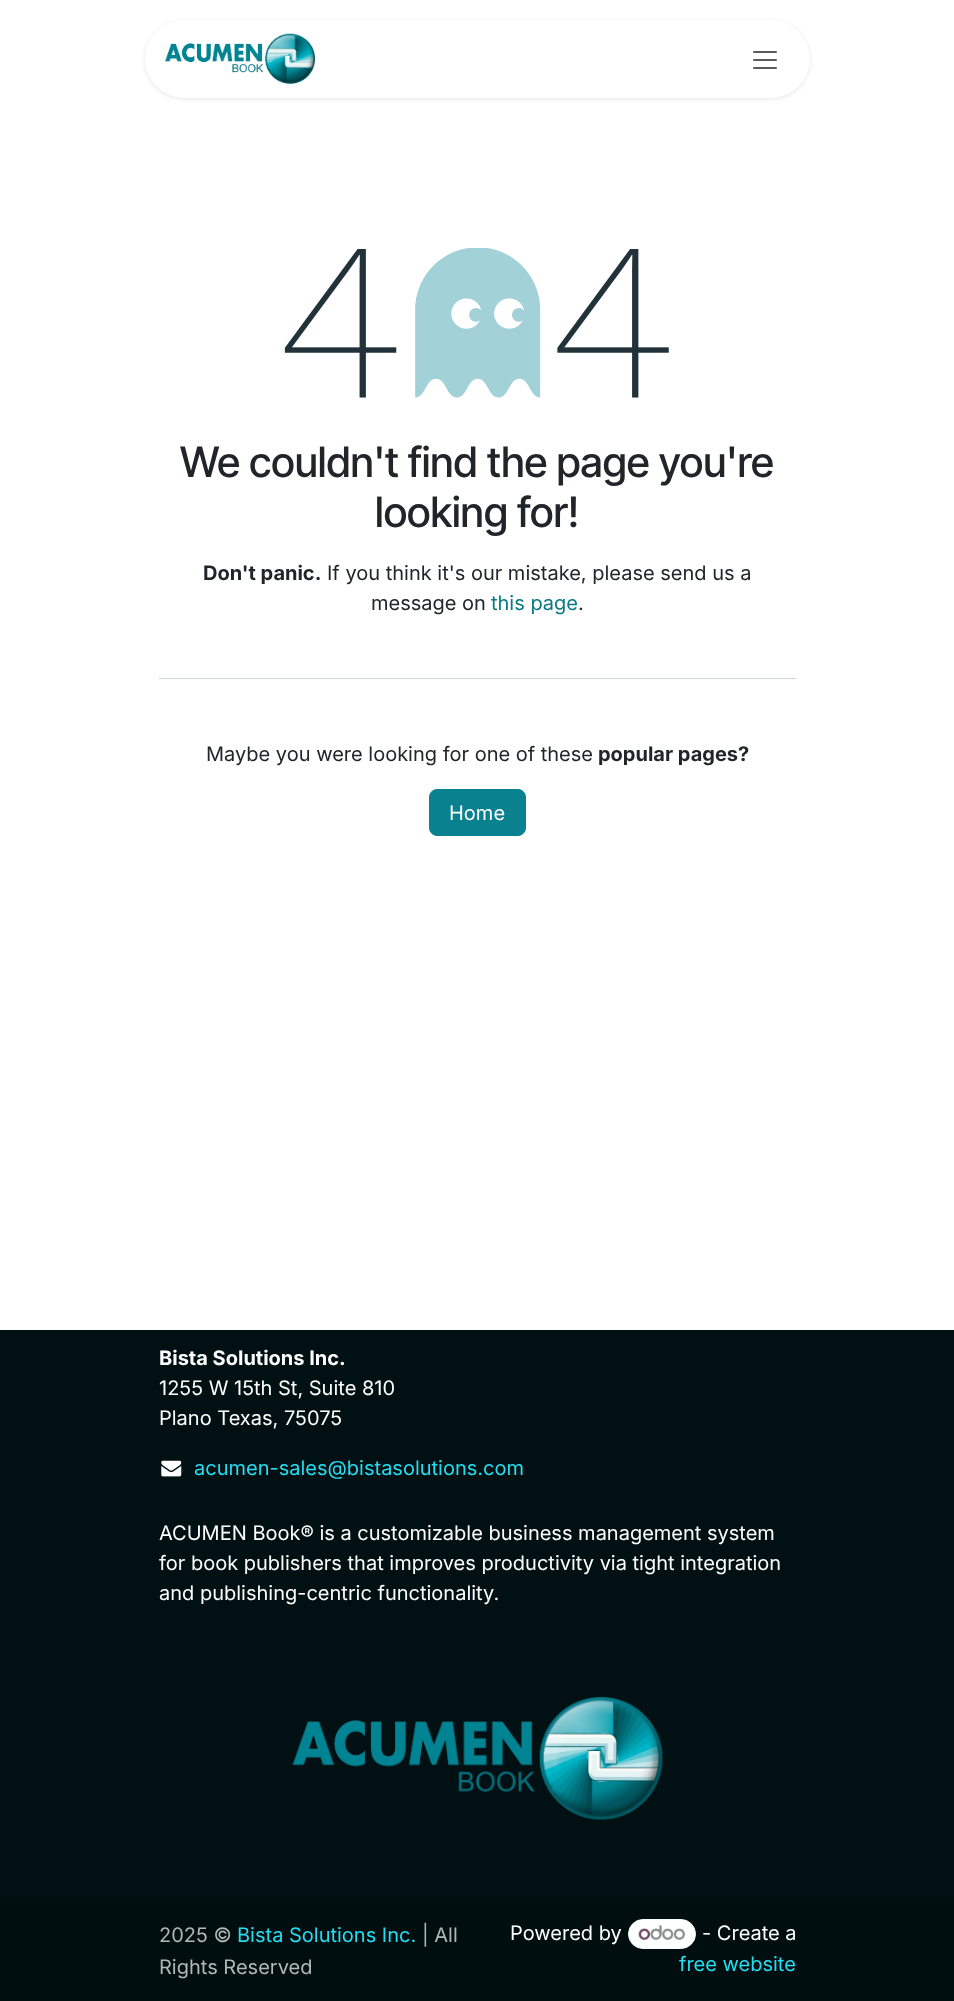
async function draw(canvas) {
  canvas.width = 954;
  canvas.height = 2001;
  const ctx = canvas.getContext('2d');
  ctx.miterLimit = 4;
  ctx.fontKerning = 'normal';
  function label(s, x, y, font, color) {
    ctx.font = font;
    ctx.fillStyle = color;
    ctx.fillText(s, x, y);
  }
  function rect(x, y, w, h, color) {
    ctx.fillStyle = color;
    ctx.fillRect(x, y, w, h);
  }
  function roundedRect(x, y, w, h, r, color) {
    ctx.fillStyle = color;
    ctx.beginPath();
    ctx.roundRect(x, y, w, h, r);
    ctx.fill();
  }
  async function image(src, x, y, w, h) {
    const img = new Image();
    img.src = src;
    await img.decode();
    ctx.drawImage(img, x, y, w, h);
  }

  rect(0, 0, 954, 2001, '#fff');
  ctx.fillStyle = '#0000001a';
  ctx.filter = 'blur(2px)';
  ctx.beginPath();
  ctx.roundRect(145, 21, 665, 78, 39);
  ctx.fill();
  ctx.filter = 'none';
  roundedRect(145, 20, 665, 78, 39, '#fff');
  await image('assets/img1.png', 165, 33, 150, 51);
  await image('assets/img2.png', 753, 51, 24, 18);
  await image('assets/img3.png', 284, 248, 385, 150);
  label('We couldn\'t find the page you\'re', 180, 477, '500 41.8px Inter Tight', '#212529');
  label('looking for!', 375, 527, '500 41.8px Inter Tight', '#212529');
  label('Don\'t panic.', 203, 580, 'bold 20px Inter', '#212529');
  label('If you think it\'s our mistake, please send us a', 327, 580, '20px Inter', '#212529');
  label('message on', 371, 610, '20px Inter', '#212529');
  label('this page', 491, 610, '20px Inter', '#087884');
  label('.', 578, 610, '20px Inter', '#212529');
  rect(159, 678, 637, 1, '#ced4da');
  label('Maybe you were looking for one of these', 206, 761, '20px Inter', '#212529');
  label('popular pages?', 598, 761, 'bold 20px Inter', '#212529');
  ctx.fillStyle = '#09818e';
  ctx.beginPath();
  ctx.roundRect(429.5, 789.5, 96, 46, 7.5);
  ctx.fill();
  ctx.strokeStyle = '#09818e';
  ctx.stroke();
  label('Home', 449, 820, '20px Inter', '#fff');
  rect(0, 1330, 954, 568, '#011012');
  label('Bista Solutions Inc.', 159, 1365, 'bold 20px Inter', '#fff');
  label('1255 W 15th St, Suite 810', 159, 1395, '20px Inter', '#fff');
  label('Plano Texas, 75075', 159, 1425, '20px Inter', '#fff');
  await image('assets/img4.png', 161, 1460, 21, 17);
  label('acumen-sales@bistasolutions.com', 194, 1475, '20px Inter', '#25ddf1');
  label('ACUMEN Book® is a customizable business management system', 159, 1540, '20px Inter', '#fff');
  label('for book publishers that improves productivity via tight integration', 159, 1570, '20px Inter', '#fff');
  label('and publishing-centric functionality.', 159, 1600, '20px Inter', '#fff');
  await image('assets/img5.png', 292, 1697, 371, 123);
  rect(0, 1898, 954, 103, '#010e0f');
  label('2025 ©', 159, 1942, '20px Inter', '#b3b7b7');
  label('Bista Solutions Inc.', 237, 1942, '20px Inter', '#25ddf1');
  label('| All', 422, 1942, '20px Inter', '#b3b7b7');
  label('Rights Reserved', 159, 1974, '20px Inter', '#b3b7b7');
  label('Powered by', 510, 1940, '20px Inter', '#fff');
  ctx.fillStyle = '#feffff';
  ctx.beginPath();
  ctx.roundRect(628.5, 1919.5, 67, 29, 14.5);
  ctx.fill();
  ctx.strokeStyle = '#f6fbfb';
  ctx.stroke();
  await image('assets/img6.png', 638, 1925, 47, 15);
  label('- Create a', 702, 1940, '20px Inter', '#fff');
  label('free website', 679, 1971, '20px Inter', '#25ddf1');
}

draw(document.querySelector('canvas'));
